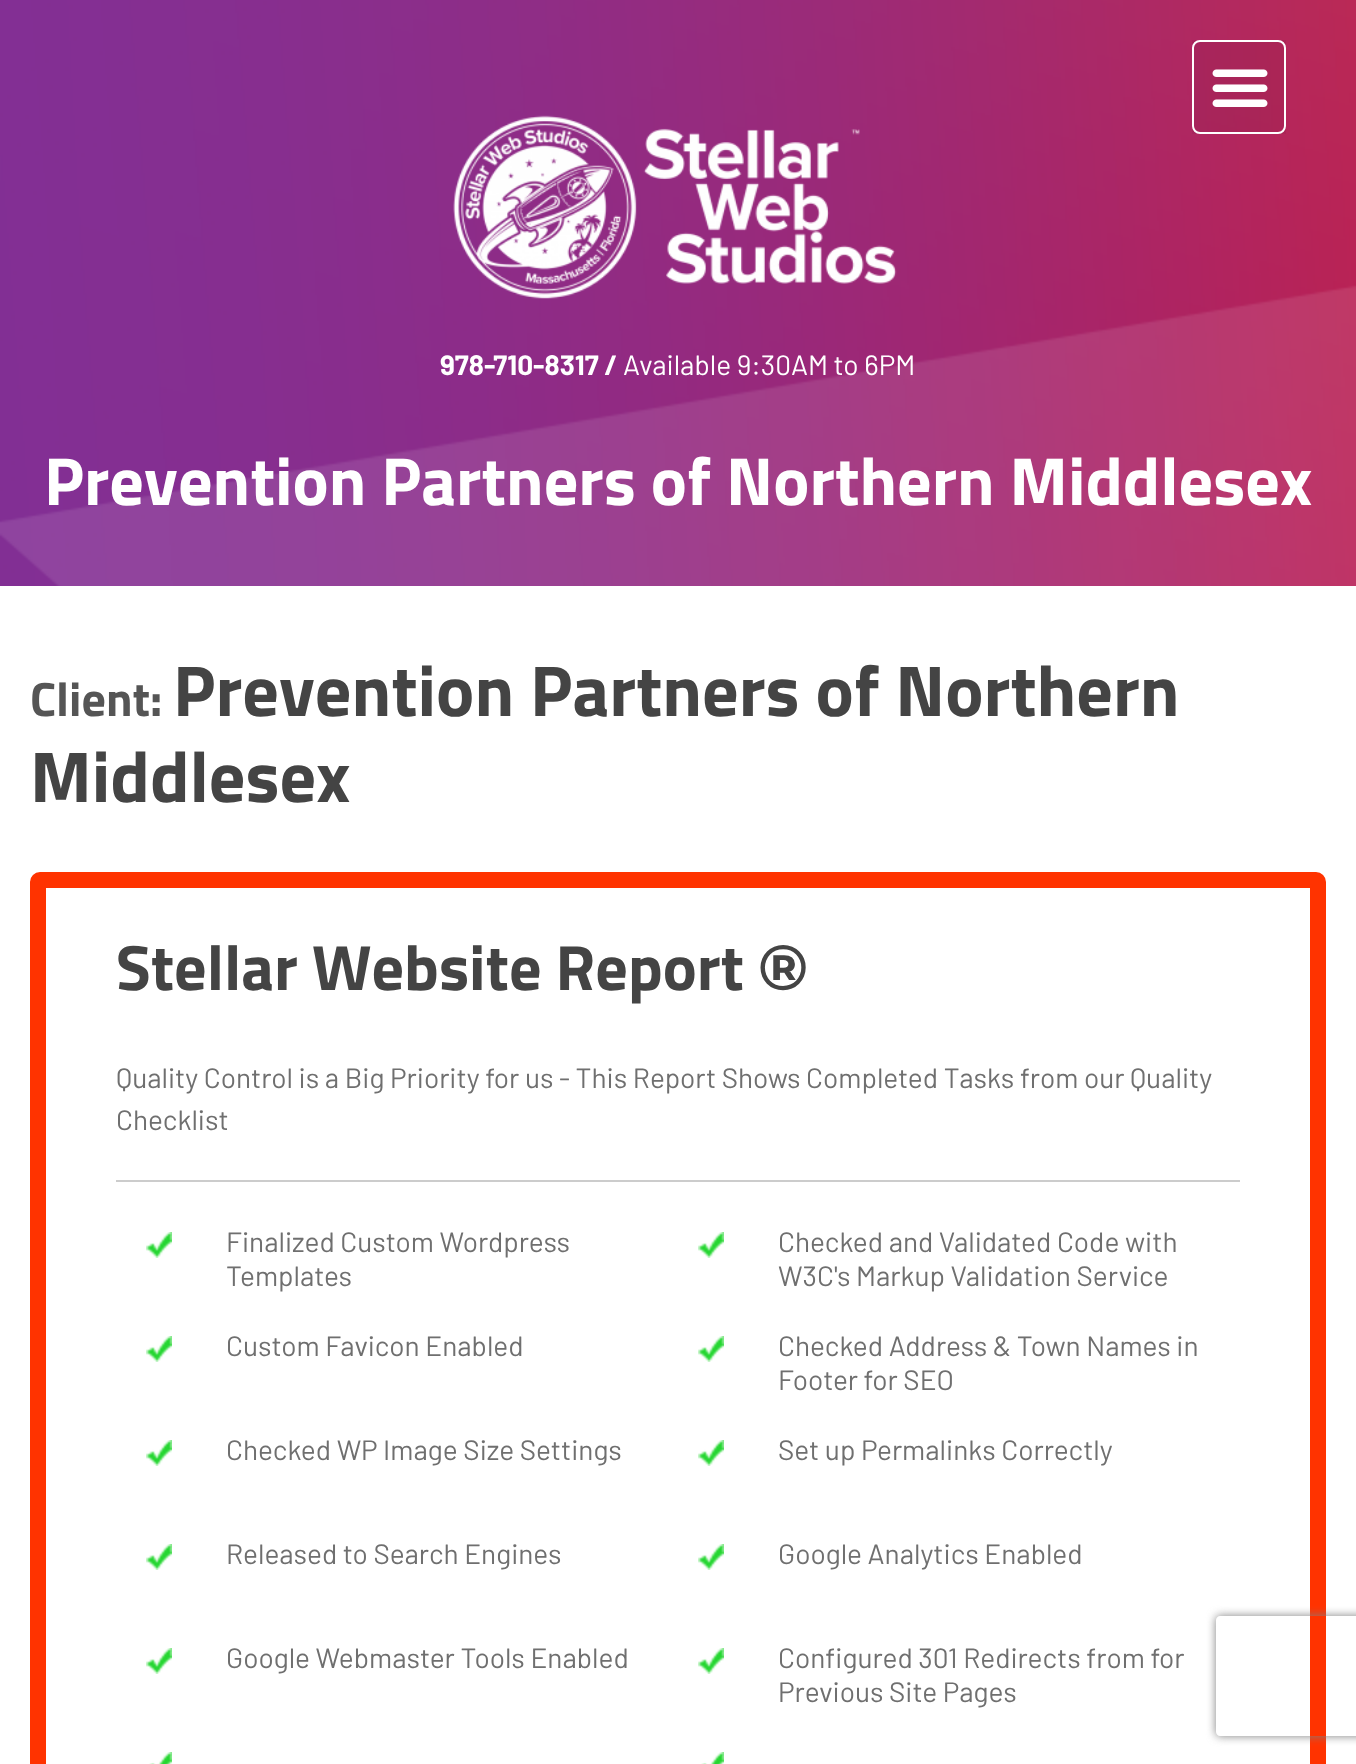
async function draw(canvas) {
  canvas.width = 1356;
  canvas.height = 1764;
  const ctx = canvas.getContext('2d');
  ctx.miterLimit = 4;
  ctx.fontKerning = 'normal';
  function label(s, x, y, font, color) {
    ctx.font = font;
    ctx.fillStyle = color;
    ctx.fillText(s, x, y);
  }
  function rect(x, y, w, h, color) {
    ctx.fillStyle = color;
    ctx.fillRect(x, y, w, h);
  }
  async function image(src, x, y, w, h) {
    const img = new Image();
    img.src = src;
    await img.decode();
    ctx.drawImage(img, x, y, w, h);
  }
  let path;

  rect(0, 0, 1356, 1764, '#fff');
  await image('assets/img1.png', 0, 0, 1356, 586);
  rect(1192, 40, 94, 94, '#0000000d');
  ctx.beginPath();
  ctx.roundRect(1193, 41, 92, 92, 7);
  ctx.strokeStyle = '#fff';
  ctx.lineWidth = 2;
  ctx.stroke();
  await image('assets/img2.png', 1212, 69, 56, 38);
  await image('assets/img3.png', 453, 115, 444, 184);
  label('978-710-8317 /', 440, 375, 'bold 28px Barlow', '#fff');
  label('Available 9:30AM to 6PM', 623, 375, '28px Barlow', '#fff');
  label('Prevention Partners of Northern Middlesex', 44, 505, 'bold 68px Sunflower', '#fff');
  label('Client:', 30, 716, 'bold 48px Sunflower', '#555');
  label('Prevention Partners of Northern', 173, 716, 'bold 72px Sunflower', '#444');
  label('Middlesex', 30, 802, 'bold 72px Sunflower', '#444');
  ctx.beginPath();
  ctx.roundRect(38, 880, 1280, 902, 2);
  ctx.strokeStyle = '#f30';
  ctx.lineWidth = 16;
  ctx.stroke();
  label('Stellar Website Report', 116, 990, 'bold 64px Sunflower', '#444');
  label('®', 758, 990, 'bold 64px Montserrat', '#444');
  label('Quality Control is a Big Priority for us - This Report Shows Completed Tasks from our Quality', 116, 1088, '28px Barlow', '#6f6f6f');
  label('Checklist', 116, 1130, '28px Barlow', '#6f6f6f');
  rect(116, 1180, 1124, 2, '#ccc');
  await image('assets/img4.png', 146, 1232, 26, 26);
  label('Finalized Custom Wordpress', 226, 1252, '28px Barlow', '#6f6f6f');
  label('Templates', 226, 1286, '28px Barlow', '#6f6f6f');
  await image('assets/img4.png', 698, 1232, 26, 26);
  label('Checked and Validated Code with', 778, 1252, '28px Barlow', '#6f6f6f');
  label('W3C\'s Markup Validation Service', 778, 1286, '28px Barlow', '#6f6f6f');
  await image('assets/img4.png', 146, 1336, 26, 26);
  label('Custom Favicon Enabled', 226, 1356, '28px Barlow', '#6f6f6f');
  await image('assets/img4.png', 698, 1336, 26, 26);
  label('Checked Address & Town Names in', 778, 1356, '28px Barlow', '#6f6f6f');
  label('Footer for SEO', 778, 1390, '28px Barlow', '#6f6f6f');
  await image('assets/img4.png', 146, 1440, 26, 26);
  label('Checked WP Image Size Settings', 226, 1460, '28px Barlow', '#6f6f6f');
  await image('assets/img4.png', 698, 1440, 26, 26);
  label('Set up Permalinks Correctly', 778, 1460, '28px Barlow', '#6f6f6f');
  await image('assets/img4.png', 146, 1544, 26, 26);
  label('Released to Search Engines', 226, 1564, '28px Barlow', '#6f6f6f');
  await image('assets/img4.png', 698, 1544, 26, 26);
  label('Google Analytics Enabled', 778, 1564, '28px Barlow', '#6f6f6f');
  await image('assets/img4.png', 146, 1648, 26, 26);
  label('Google Webmaster Tools Enabled', 226, 1668, '28px Barlow', '#6f6f6f');
  await image('assets/img4.png', 698, 1648, 26, 26);
  label('Configured 301 Redirects from for', 778, 1668, '28px Barlow', '#6f6f6f');
  label('Previous Site Pages', 778, 1702, '28px Barlow', '#6f6f6f');
  await image('assets/img5.png', 149, 1752, 23, 12);
  await image('assets/img5.png', 701, 1752, 23, 12);
  ctx.save();
  path = new Path2D('M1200 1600H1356V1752H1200ZM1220 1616H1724C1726 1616 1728 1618 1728 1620V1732C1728 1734 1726 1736 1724 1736H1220C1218 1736 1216 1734 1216 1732V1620C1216 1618 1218 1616 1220 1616Z');
  ctx.clip(path, 'evenodd');
  ctx.fillStyle = '#808080';
  ctx.filter = 'blur(5px)';
  ctx.beginPath();
  ctx.roundRect(1216, 1616, 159, 120, 4);
  ctx.fill();
  ctx.filter = 'none';
  ctx.restore();
}

draw(document.querySelector('canvas'));
